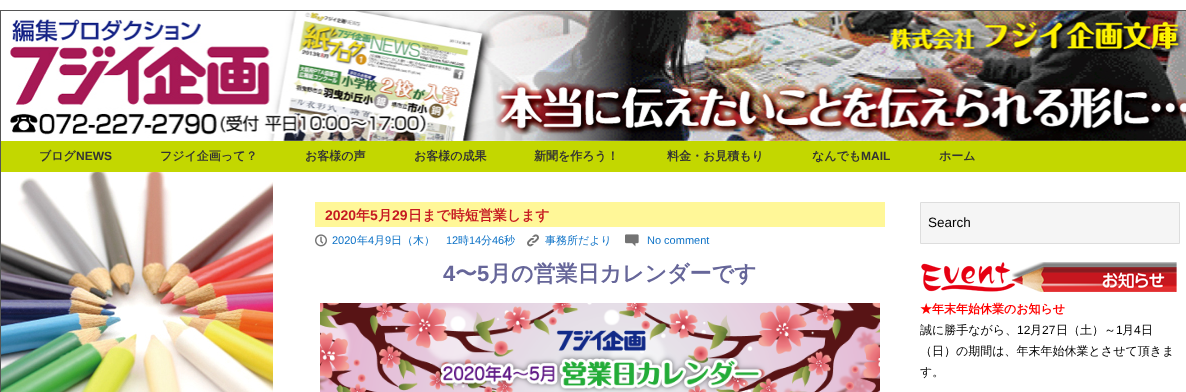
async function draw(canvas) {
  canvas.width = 1186;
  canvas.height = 392;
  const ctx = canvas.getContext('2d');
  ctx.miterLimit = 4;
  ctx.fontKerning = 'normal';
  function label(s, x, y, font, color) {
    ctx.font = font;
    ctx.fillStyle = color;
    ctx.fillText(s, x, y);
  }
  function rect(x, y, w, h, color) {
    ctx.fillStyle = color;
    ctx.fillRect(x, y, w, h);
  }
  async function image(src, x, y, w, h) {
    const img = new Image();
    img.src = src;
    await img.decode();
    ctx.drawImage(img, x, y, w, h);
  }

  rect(0, 0, 1186, 392, '#fff');
  rect(0, 10, 1, 382, '#555');
  rect(1, 10, 1185, 1, '#555');
  await image('assets/img1.png', 1, 11, 1185, 130);
  rect(1, 141, 1185, 31, '#c3d700');
  label('ブログ', 39, 160, 'bold 12px WenQuanYi Zen Hei', '#333');
  label('NEWS', 76, 160, 'bold 12px Liberation Sans', '#333');
  label('フジイ企画って？', 160, 160, 'bold 12px WenQuanYi Zen Hei', '#333');
  label('お客様の声', 305, 160, 'bold 12px WenQuanYi Zen Hei', '#333');
  label('お客様の成果', 414, 160, 'bold 12px WenQuanYi Zen Hei', '#333');
  label('新聞を作ろう！', 534, 160, 'bold 12px WenQuanYi Zen Hei', '#333');
  label('料金・お見積もり', 667, 160, 'bold 12px WenQuanYi Zen Hei', '#333');
  label('なんでも', 812, 160, 'bold 12px WenQuanYi Zen Hei', '#333');
  label('MAIL', 861, 160, 'bold 12px Liberation Sans', '#333');
  label('ホーム', 939, 160, 'bold 12px WenQuanYi Zen Hei', '#333');
  await image('assets/img2.png', 1, 172, 272, 220);
  rect(315, 202, 570, 25, '#fff798');
  label('2020', 325, 220, 'bold 14px Liberation Sans', '#c61a22');
  label('年', 356, 220, 'bold 14px WenQuanYi Zen Hei', '#c61a22');
  label('5', 370, 220, 'bold 14px Liberation Sans', '#c61a22');
  label('月', 378, 220, 'bold 14px WenQuanYi Zen Hei', '#c61a22');
  label('29', 392, 220, 'bold 14px Liberation Sans', '#c61a22');
  label('日まで時短営業します', 408, 220, 'bold 14px WenQuanYi Zen Hei', '#c61a22');
  await image('assets/img3.png', 315, 234, 12, 13);
  label('2020', 332, 244, '11px Liberation Sans', '#0d72c7');
  label('年', 357, 244, '500 11px WenQuanYi Zen Hei', '#0d72c7');
  label('4', 368, 244, '11px Liberation Sans', '#0d72c7');
  label('月', 374, 244, '500 11px WenQuanYi Zen Hei', '#0d72c7');
  label('9', 385, 244, '11px Liberation Sans', '#0d72c7');
  label('日（木）', 391, 244, '500 11px WenQuanYi Zen Hei', '#0d72c7');
  label('12', 446, 244, '11px Liberation Sans', '#0d72c7');
  label('時', 458, 244, '500 11px WenQuanYi Zen Hei', '#0d72c7');
  label('14', 469, 244, '11px Liberation Sans', '#0d72c7');
  label('分', 481, 244, '500 11px WenQuanYi Zen Hei', '#0d72c7');
  label('46', 492, 244, '11px Liberation Sans', '#0d72c7');
  label('秒', 504, 244, '500 11px WenQuanYi Zen Hei', '#0d72c7');
  await image('assets/img4.png', 527, 234, 12, 13);
  label('事務所だより', 545, 244, '500 11px WenQuanYi Zen Hei', '#0d72c7');
  await image('assets/img5.png', 625, 234, 14, 13);
  label('No comment', 647, 244, '11px Liberation Sans', '#0d72c7');
  label('4', 443, 281, 'bold 22px Liberation Sans', '#669');
  label('〜', 455, 281, 'bold 22px WenQuanYi Zen Hei', '#669');
  label('5', 477, 281, 'bold 22px Liberation Sans', '#669');
  label('月の営業日カレンダーです', 489, 281, 'bold 22px WenQuanYi Zen Hei', '#669');
  await image('assets/img6.png', 320, 303, 560, 89);
  ctx.fillStyle = '#f5f5f5';
  ctx.beginPath();
  ctx.rect(920.5, 202.5, 259, 41);
  ctx.fill();
  ctx.strokeStyle = '#ddd';
  ctx.stroke();
  label('Search', 928, 227, '13.5px Liberation Sans', '#000');
  await image('assets/img7.png', 921, 262, 256, 30);
  label('★年末年始休業のお知らせ', 920, 313, 'bold 12px WenQuanYi Zen Hei', '#f00');
  label('誠に勝手ながら、', 920, 334, '500 12px WenQuanYi Zen Hei', '#000');
  label('12', 1017, 334, '12px Liberation Sans', '#000');
  label('月', 1030, 334, '500 12px WenQuanYi Zen Hei', '#000');
  label('27', 1042, 334, '12px Liberation Sans', '#000');
  label('日（土）～', 1056, 334, '500 12px WenQuanYi Zen Hei', '#000');
  label('1', 1116, 334, '12px Liberation Sans', '#000');
  label('月', 1122, 334, '500 12px WenQuanYi Zen Hei', '#000');
  label('4', 1134, 334, '12px Liberation Sans', '#000');
  label('日', 1141, 334, '500 12px WenQuanYi Zen Hei', '#000');
  label('（日）の期間は、年末年始休業とさせて頂きま', 920, 355, '500 12px WenQuanYi Zen Hei', '#000');
  label('す。', 920, 376, '500 12px WenQuanYi Zen Hei', '#000');
}

draw(document.querySelector('canvas'));
